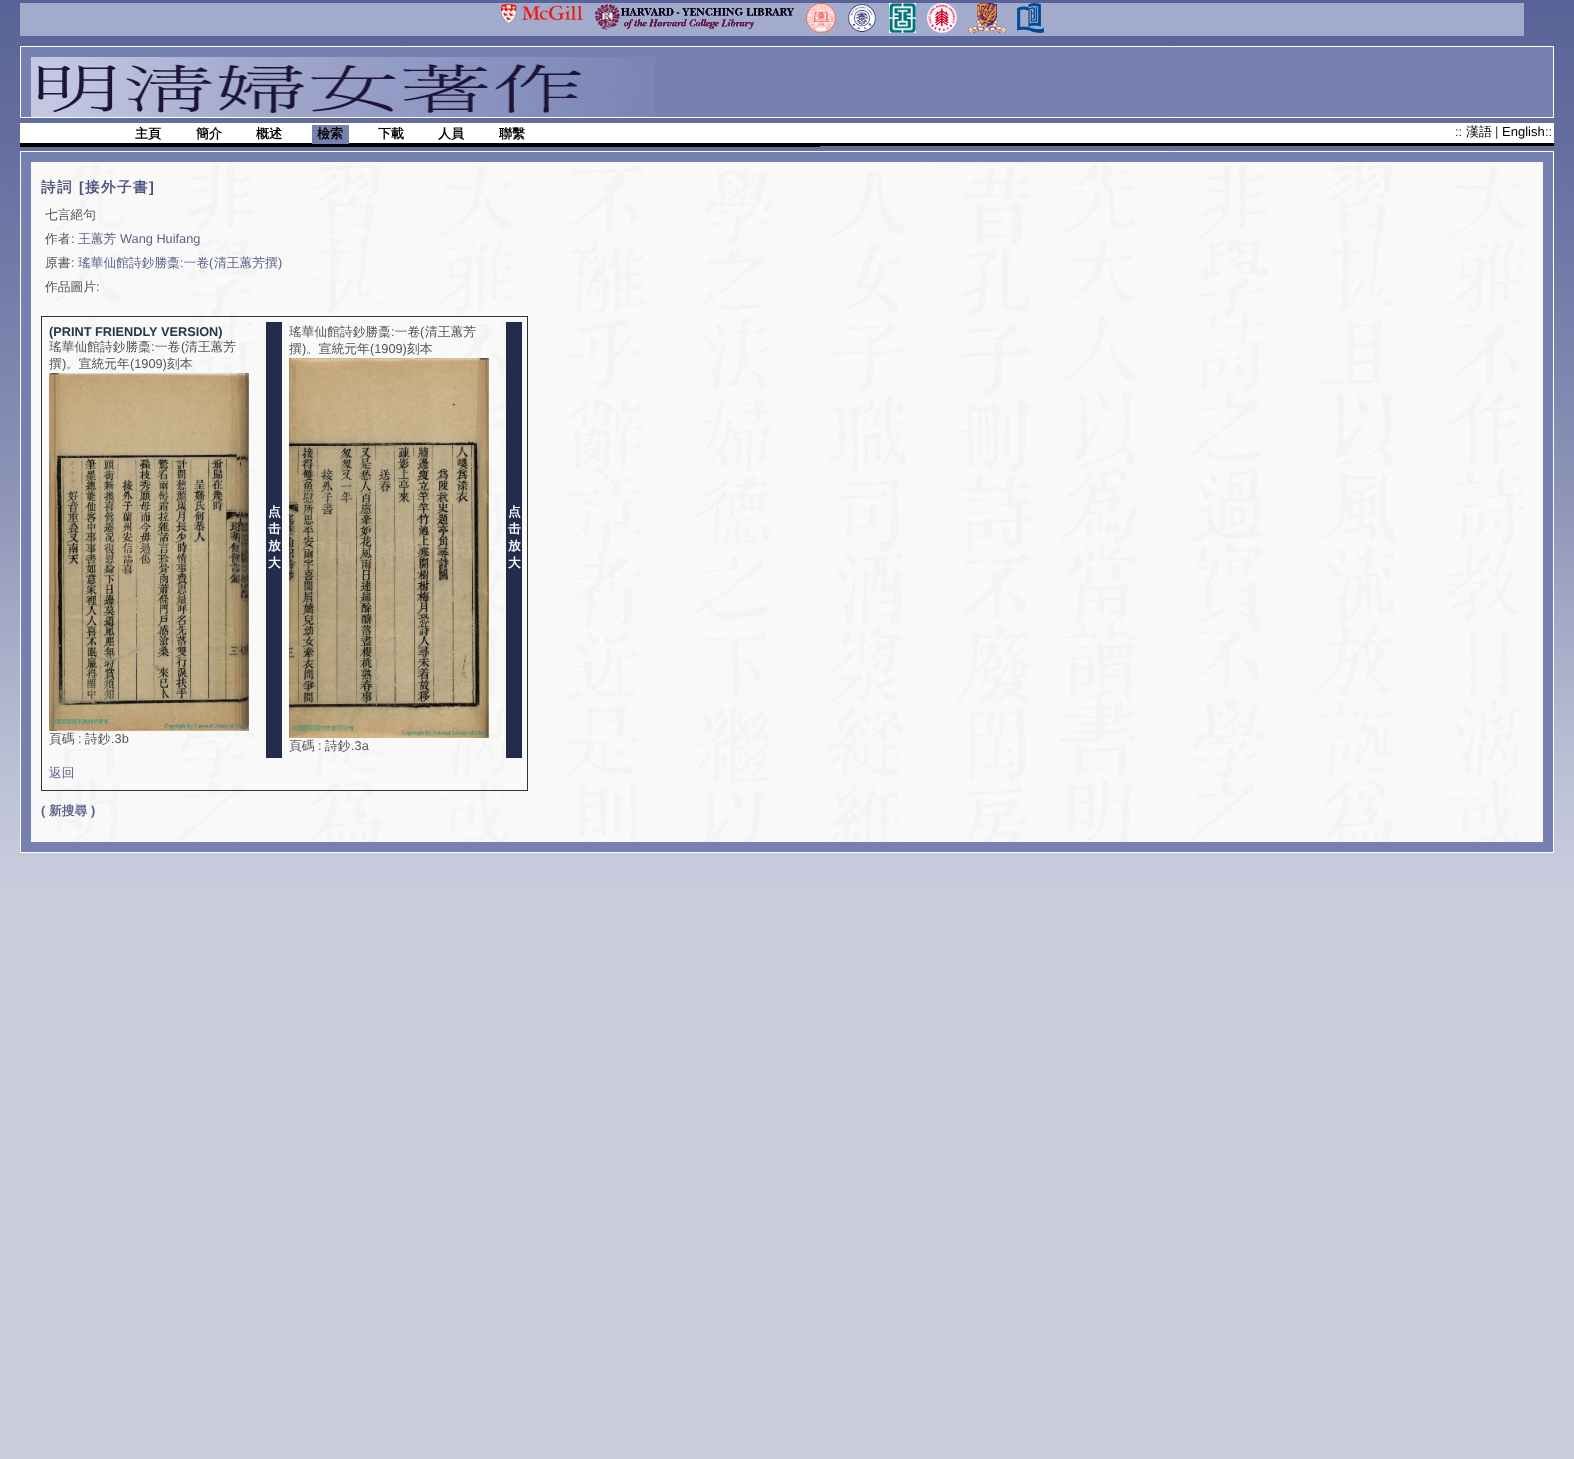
async function draw(canvas) {
  canvas.width = 1574;
  canvas.height = 1459;
  const ctx = canvas.getContext('2d');
  ctx.miterLimit = 4;
  ctx.fontKerning = 'normal';
  function label(s, x, y, font, color) {
    ctx.font = font;
    ctx.fillStyle = color;
    ctx.fillText(s, x, y);
  }
  function rect(x, y, w, h, color) {
    ctx.fillStyle = color;
    ctx.fillRect(x, y, w, h);
  }
  async function image(src, x, y, w, h) {
    const img = new Image();
    img.src = src;
    await img.decode();
    ctx.drawImage(img, x, y, w, h);
  }

  rect(0, 0, 1574, 1459, '#fff');
  await image('assets/img1.png', 0, 0, 1574, 1459);
  rect(20, 3, 1504, 33, '#a3abcc');
  await image('assets/img2.png', 501, 4, 82, 19);
  await image('assets/img3.png', 595, 4, 199, 26);
  await image('assets/img4.png', 806, 3, 30, 30);
  await image('assets/img5.png', 848, 3, 29, 29);
  await image('assets/img6.png', 889, 3, 27, 30);
  await image('assets/img7.png', 927, 3, 30, 30);
  await image('assets/img8.png', 968, 3, 38, 30);
  await image('assets/img9.png', 1017, 3, 27, 30);
  ctx.fillStyle = '#7781b1';
  ctx.beginPath();
  ctx.rect(20.5, 46.5, 1533, 71);
  ctx.fill();
  ctx.strokeStyle = '#fff';
  ctx.stroke();
  await image('assets/img10.png', 31, 57, 624, 60);
  rect(20, 123, 1534, 20, '#fff');
  rect(20, 143, 1534, 3, '#000');
  label('主頁', 135, 138, 'bold 13px WenQuanYi Zen Hei', '#000');
  label('簡介', 196, 138, 'bold 13px WenQuanYi Zen Hei', '#000');
  label('概述', 256, 138, 'bold 13px WenQuanYi Zen Hei', '#000');
  rect(312, 125, 37, 19, '#7781b1');
  label('檢索', 317, 138, 'bold 13px WenQuanYi Zen Hei', '#000');
  label('下載', 378, 138, 'bold 13px WenQuanYi Zen Hei', '#000');
  label('人員', 438, 138, 'bold 13px WenQuanYi Zen Hei', '#000');
  label('聯繫', 499, 138, 'bold 13px WenQuanYi Zen Hei', '#000');
  label('::', 1455, 136, '13px Liberation Sans', '#333');
  label('漢語', 1466, 136, '500 13px WenQuanYi Zen Hei', '#000');
  label('|', 1495, 136, '13px Liberation Sans', '#333');
  label('English', 1502, 136, '13px Liberation Sans', '#000');
  label('::', 1545, 136, '13px Liberation Sans', '#333');
  rect(20, 146, 800, 1, '#020000');
  ctx.fillStyle = '#7781b1';
  ctx.beginPath();
  ctx.rect(20.5, 151.5, 1533, 701);
  ctx.fill();
  ctx.stroke();
  await image('assets/img11.png', 31, 162, 1512, 680);
  ctx.letterSpacing = '1.5px';
  label('詩詞', 41, 192, 'bold 14.5px WenQuanYi Zen Hei', '#4c547e');
  label('[', 79, 192, 'bold 14.5px Liberation Sans', '#4c547e');
  label('接外子書', 85, 192, 'bold 14.5px WenQuanYi Zen Hei', '#4c547e');
  label(']', 149, 192, 'bold 14.5px Liberation Sans', '#4c547e');
  ctx.letterSpacing = '0px';
  label('七言絕句', 45, 219, '500 12.75px WenQuanYi Zen Hei', '#545454');
  label('作者', 45, 243, '500 12.75px WenQuanYi Zen Hei', '#545454');
  label(':', 71, 243, '12.75px Liberation Sans', '#545454');
  label('王蕙芳', 78, 243, '500 12.75px WenQuanYi Zen Hei', '#5a6288');
  label('Wang Huifang', 120, 243, '12.75px Liberation Sans', '#5a6288');
  label('原書', 45, 267, '500 12.75px WenQuanYi Zen Hei', '#545454');
  label(':', 71, 267, '12.75px Liberation Sans', '#545454');
  label('瑤華仙館詩鈔勝稾 一卷', 78, 267, '500 12.75px WenQuanYi Zen Hei', '#5a6288');
  label('(', 209, 267, '12.75px Liberation Sans', '#5a6288');
  label('清王蕙芳撰', 214, 267, '500 12.75px WenQuanYi Zen Hei', '#5a6288');
  label(')', 278, 267, '12.75px Liberation Sans', '#5a6288');
  label(':', 180, 267, '12.75px Liberation Sans', '#5a6288');
  label('作品圖片', 45, 291, '500 12.75px WenQuanYi Zen Hei', '#545454');
  label(':', 96, 291, '12.75px Liberation Sans', '#545454');
  ctx.strokeStyle = '#333';
  ctx.strokeRect(41.5, 316.5, 486, 474);
  label('(PRINT FRIENDLY VERSION)', 49, 336, 'bold 12.75px Liberation Sans', '#22384b');
  label('瑤華仙館詩鈔勝稾 一卷', 49, 351, '500 12.75px WenQuanYi Zen Hei', '#545454');
  label('(', 181, 351, '12.75px Liberation Sans', '#545454');
  label('清王蕙芳', 185, 351, '500 12.75px WenQuanYi Zen Hei', '#545454');
  label(':', 151, 351, '12.75px Liberation Sans', '#545454');
  label('撰', 49, 368, '500 12.75px WenQuanYi Zen Hei', '#545454');
  label(')', 62, 368, '12.75px Liberation Sans', '#545454');
  label('。宣統元年', 66, 368, '500 12.75px WenQuanYi Zen Hei', '#545454');
  label('(1909)', 130, 368, '12.75px Liberation Sans', '#545454');
  label('刻本', 167, 368, '500 12.75px WenQuanYi Zen Hei', '#545454');
  await image('assets/img12.png', 49, 373, 200, 358);
  label('頁碼', 49, 743, '500 12.75px WenQuanYi Zen Hei', '#545454');
  label(':', 78, 743, '12.75px Liberation Sans', '#545454');
  label('詩鈔', 85, 743, '500 12.75px WenQuanYi Zen Hei', '#545454');
  label('.3b', 111, 743, '12.75px Liberation Sans', '#545454');
  rect(266, 322, 16, 436, '#222c4b');
  label('点', 268, 516, 'bold 12.75px WenQuanYi Zen Hei', '#fff');
  label('击', 268, 533, 'bold 12.75px WenQuanYi Zen Hei', '#fff');
  label('放', 268, 550, 'bold 12.75px WenQuanYi Zen Hei', '#fff');
  label('大', 268, 567, 'bold 12.75px WenQuanYi Zen Hei', '#fff');
  label('瑤華仙館詩鈔勝稾 一卷', 289, 336, '500 12.75px WenQuanYi Zen Hei', '#545454');
  label('(', 420, 336, '12.75px Liberation Sans', '#545454');
  label('清王蕙芳', 425, 336, '500 12.75px WenQuanYi Zen Hei', '#545454');
  label(':', 391, 336, '12.75px Liberation Sans', '#545454');
  label('撰', 289, 353, '500 12.75px WenQuanYi Zen Hei', '#545454');
  label(')', 302, 353, '12.75px Liberation Sans', '#545454');
  label('。宣統元年', 306, 353, '500 12.75px WenQuanYi Zen Hei', '#545454');
  label('(1909)', 370, 353, '12.75px Liberation Sans', '#545454');
  label('刻本', 407, 353, '500 12.75px WenQuanYi Zen Hei', '#545454');
  await image('assets/img13.png', 289, 358, 200, 380);
  label('頁碼', 289, 750, '500 12.75px WenQuanYi Zen Hei', '#545454');
  label(':', 318, 750, '12.75px Liberation Sans', '#545454');
  label('詩鈔', 325, 750, '500 12.75px WenQuanYi Zen Hei', '#545454');
  label('.3a', 351, 750, '12.75px Liberation Sans', '#545454');
  rect(506, 322, 16, 436, '#222c4b');
  label('点', 508, 516, 'bold 12.75px WenQuanYi Zen Hei', '#fff');
  label('击', 508, 533, 'bold 12.75px WenQuanYi Zen Hei', '#fff');
  label('放', 508, 550, 'bold 12.75px WenQuanYi Zen Hei', '#fff');
  label('大', 508, 567, 'bold 12.75px WenQuanYi Zen Hei', '#fff');
  label('返回', 49, 777, '500 12.75px WenQuanYi Zen Hei', '#5a6288');
  label('(', 41, 815, 'bold 12.75px Liberation Sans', '#5a6288');
  label('新搜尋', 49, 815, 'bold 12.75px WenQuanYi Zen Hei', '#5a6288');
  label(')', 91, 815, 'bold 12.75px Liberation Sans', '#5a6288');
}

draw(document.querySelector('canvas'));
